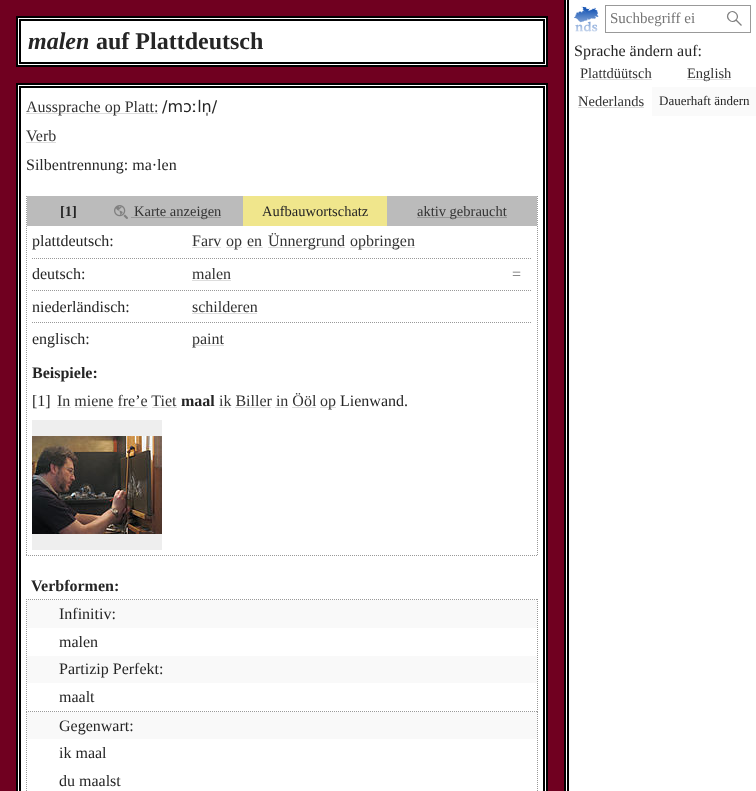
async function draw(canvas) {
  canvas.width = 756;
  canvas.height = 791;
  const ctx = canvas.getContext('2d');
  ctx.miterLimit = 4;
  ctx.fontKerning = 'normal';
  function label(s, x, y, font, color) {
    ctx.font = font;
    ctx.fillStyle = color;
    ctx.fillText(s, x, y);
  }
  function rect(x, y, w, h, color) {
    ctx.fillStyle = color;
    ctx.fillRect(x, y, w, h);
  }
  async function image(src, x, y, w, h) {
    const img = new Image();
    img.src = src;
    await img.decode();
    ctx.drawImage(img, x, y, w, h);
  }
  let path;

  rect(0, 0, 756, 791, '#700020');
  ctx.fillStyle = '#fff';
  ctx.beginPath();
  ctx.rect(17, 17, 530, 49);
  ctx.fill();
  ctx.strokeStyle = '#000';
  ctx.lineWidth = 2;
  ctx.stroke();
  ctx.strokeRect(20, 20, 524, 43);
  label('malen', 28, 49, 'italic bold 24px Liberation Serif', '#252525');
  label('auf Plattdeutsch', 96, 49, 'bold 24px Liberation Serif', '#252525');
  rect(566, 0, 190, 791, '#fff');
  rect(564, 0, 2, 791, '#000');
  rect(567, 0, 2, 791, '#000');
  await image('assets/img1.png', 574, 6, 25, 26);
  ctx.strokeStyle = '#999';
  ctx.lineWidth = 1;
  ctx.strokeRect(605.5, 5.5, 145, 27);
  label('Suchbegriff ei', 610, 23, '15px Liberation Serif', '#757575');
  path = new Path2D('M736 20C740.5 15.5 733.5 8.5 729 13C724.5 17.5 731.5 24.5 736 20L741.5 25.5');
  ctx.strokeStyle = '#808080';
  ctx.lineWidth = 1.3;
  ctx.stroke(path);
  label('Sprache ändern auf:', 574, 56, '16px Liberation Serif', '#252525');
  label('Plattdüütsch', 580, 78, '14.5px Liberation Serif', '#333');
  rect(580, 79, 72, 1, '#ddd');
  rect(687, 79, 44, 1, '#ddd');
  label('English', 687, 78, '14.5px Liberation Serif', '#333');
  label('Nederlands', 578, 106, '14.5px Liberation Serif', '#333');
  rect(578, 107, 66, 1, '#ddd');
  rect(652, 87, 104, 29, '#fafafa');
  label('Dauerhaft ändern', 659, 105, '13px Liberation Serif', '#252525');
  ctx.fillStyle = '#fff';
  ctx.beginPath();
  ctx.rect(17, 84, 530, 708);
  ctx.fill();
  ctx.strokeStyle = '#000';
  ctx.lineWidth = 2;
  ctx.stroke();
  ctx.strokeRect(20, 87, 524, 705);
  rect(26, 113, 132, 1, '#ddd');
  label('Aussprache op Platt:', 26, 112, '16px Liberation Serif', '#333');
  label('/mɔːln̩/', 162, 112, '16px DejaVu Sans', '#252525');
  label('Verb', 26, 141, '16px Liberation Serif', '#333');
  rect(26, 142, 30, 1, '#ddd');
  label('Silbentrennung: ma·len', 26, 170, '16px Liberation Serif', '#252525');
  path = new Path2D('M537.5 196V556');
  ctx.strokeStyle = '#999';
  ctx.lineWidth = 1;
  ctx.setLineDash([1, 1]);
  ctx.stroke(path);
  path = new Path2D('M26 555.5H538');
  ctx.stroke(path);
  path = new Path2D('M26.5 196V556');
  ctx.stroke(path);
  rect(27, 196, 510, 30, '#bbb');
  label('[1]', 60, 216, 'bold 14.5px Liberation Serif', '#252525');
  await image('assets/img2.png', 114, 205, 14, 14);
  rect(131, 217, 90, 1, '#999');
  label('Karte anzeigen', 134, 216, '14.5px Liberation Serif', '#333');
  rect(243, 196, 144, 30, '#f0e68c');
  label('Aufbauwortschatz', 262, 216, '14.5px Liberation Serif', '#252525');
  rect(417, 217, 90, 1, '#999');
  label('aktiv gebraucht', 417, 216, '14.5px Liberation Serif', '#333');
  label('plattdeutsch:', 32, 246, '16px Liberation Serif', '#252525');
  label('Farv', 192, 246, '16px Liberation Serif', '#333');
  rect(192, 247, 29, 1, '#ddd');
  rect(226, 247, 16, 1, '#ddd');
  label('op', 226, 246, '16px Liberation Serif', '#333');
  label('en', 247, 246, '16px Liberation Serif', '#333');
  rect(247, 247, 16, 1, '#ddd');
  rect(268, 247, 77, 1, '#ddd');
  label('Ünnergrund', 268, 246, '16px Liberation Serif', '#333');
  rect(350, 247, 65, 1, '#ddd');
  label('opbringen', 350, 246, '16px Liberation Serif', '#333');
  path = new Path2D('M32 258.5H532');
  ctx.stroke(path);
  label('deutsch:', 32, 279, '16px Liberation Serif', '#252525');
  label('malen', 192, 279, '16px Liberation Serif', '#333');
  rect(192, 280, 39, 1, '#ddd');
  label('=', 512, 279, '16px Liberation Serif', '#666');
  path = new Path2D('M32 290.5H532');
  ctx.stroke(path);
  label('niederländisch:', 32, 312, '16px Liberation Serif', '#252525');
  label('schilderen', 192, 312, '16px Liberation Serif', '#333');
  rect(192, 313, 65, 1, '#ddd');
  path = new Path2D('M32 322.5H532');
  ctx.stroke(path);
  label('englisch:', 32, 344, '16px Liberation Serif', '#252525');
  rect(192, 345, 32, 1, '#ddd');
  label('paint', 192, 344, '16px Liberation Serif', '#333');
  label('Beispiele:', 32, 378, 'bold 16px Liberation Serif', '#252525');
  label('[1]', 32, 406, '16px Liberation Serif', '#252525');
  label('In miene fre’e Tiet', 57, 406, '16px Liberation Serif', '#333');
  rect(57, 407, 14, 1, '#ddd');
  label('maal', 181, 406, 'bold 16px Liberation Serif', '#252525');
  label('ik Biller in Ööl', 219, 406, '16px Liberation Serif', '#333');
  rect(219, 407, 12, 1, '#ddd');
  rect(320, 407, 16, 1, '#ddd');
  label('op', 320, 406, '16px Liberation Serif', '#333');
  label('Lienwand.', 340, 406, '16px Liberation Serif', '#252525');
  rect(75, 407, 39, 1, '#ddd');
  rect(118, 407, 30, 1, '#ddd');
  rect(152, 407, 25, 1, '#ddd');
  rect(235, 407, 36, 1, '#ddd');
  rect(275, 407, 13, 1, '#ddd');
  rect(292, 407, 24, 1, '#ddd');
  rect(32, 420, 130, 130, '#eee');
  await image('assets/img3.png', 32, 436, 130, 98);
  label('Verbformen:', 31, 591, 'bold 16px Liberation Serif', '#252525');
  path = new Path2D('M26 599.5H538');
  ctx.stroke(path);
  path = new Path2D('M537.5 599V712');
  ctx.stroke(path);
  path = new Path2D('M26 711.5H538');
  ctx.stroke(path);
  path = new Path2D('M26.5 599V712');
  ctx.stroke(path);
  rect(27, 600, 510, 28, '#f9f9f9');
  label('Infinitiv:', 59, 619, '16px Liberation Serif', '#252525');
  label('malen', 59, 647, '16px Liberation Serif', '#252525');
  rect(27, 656, 510, 27, '#f9f9f9');
  label('Partizip Perfekt:', 59, 674, '16px Liberation Serif', '#252525');
  label('maalt', 59, 702, '16px Liberation Serif', '#252525');
  path = new Path2D('M537.5 712V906');
  ctx.stroke(path);
  path = new Path2D('M26.5 712V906');
  ctx.stroke(path);
  rect(27, 712, 510, 27, '#f9f9f9');
  label('Gegenwart:', 59, 731, '16px Liberation Serif', '#252525');
  label('ik maal', 59, 758, '16px Liberation Serif', '#252525');
  label('du maalst', 59, 786, '16px Liberation Serif', '#252525');
}

draw(document.querySelector('canvas'));
